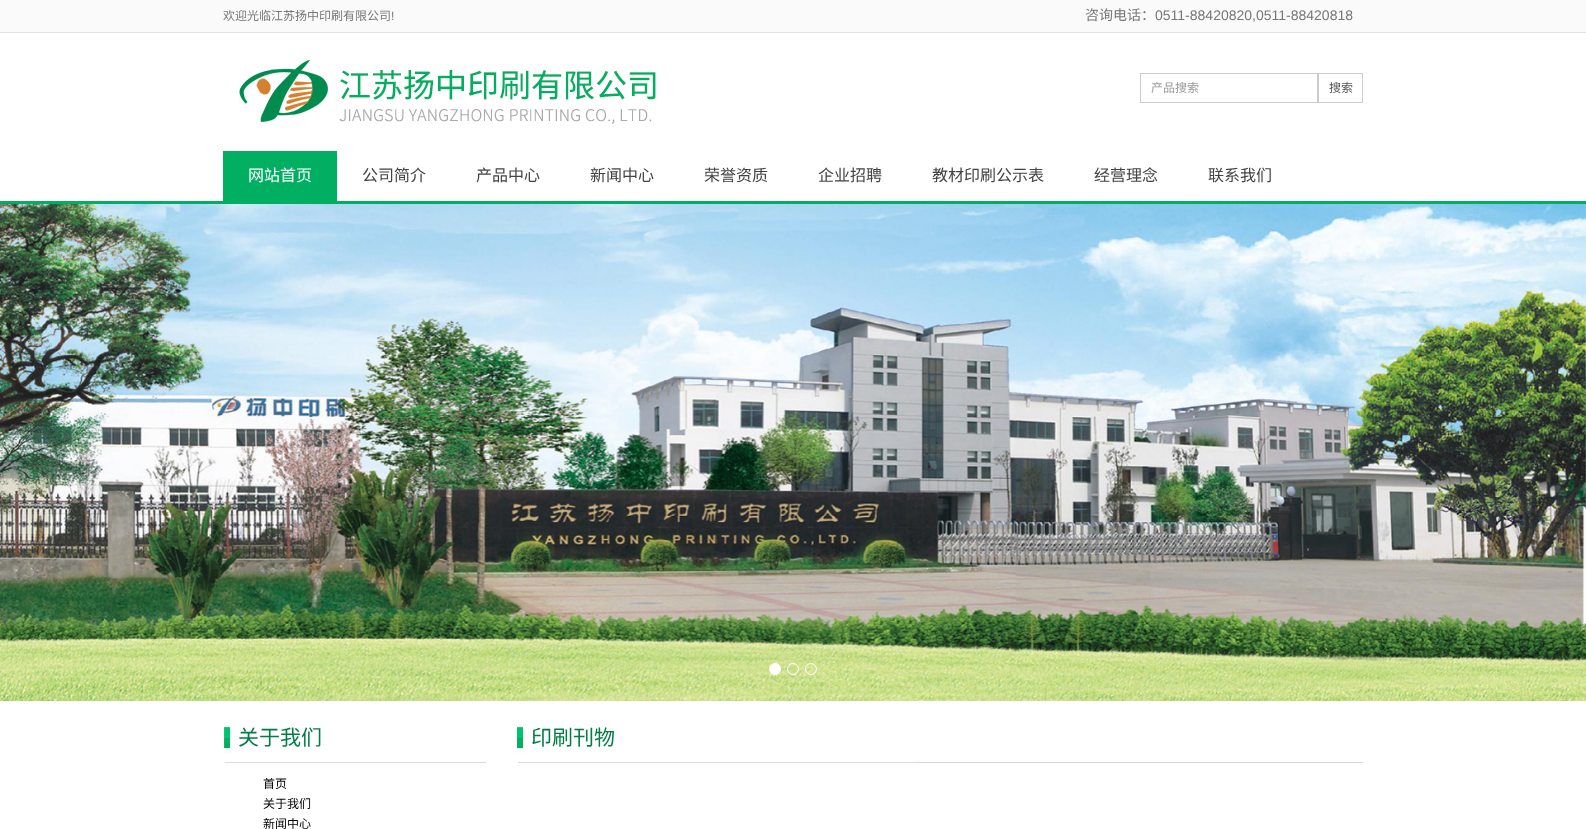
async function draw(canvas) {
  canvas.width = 1586;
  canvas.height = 829;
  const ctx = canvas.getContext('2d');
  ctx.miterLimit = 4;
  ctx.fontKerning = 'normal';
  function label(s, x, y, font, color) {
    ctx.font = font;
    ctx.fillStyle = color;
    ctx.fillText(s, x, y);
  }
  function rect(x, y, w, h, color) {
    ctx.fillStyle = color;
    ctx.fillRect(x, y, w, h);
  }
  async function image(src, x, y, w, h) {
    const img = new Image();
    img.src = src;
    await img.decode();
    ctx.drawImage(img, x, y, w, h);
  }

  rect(0, 0, 1586, 829, '#fff');
  rect(0, 0, 1586, 32, '#fafafa');
  rect(0, 32, 1586, 1, '#dfe1e3');
  label('欢迎光临江苏扬中印刷有限公司', 223, 20, '12px Noto Sans CJK SC', '#777');
  label('!', 391, 20, '12px Liberation Sans', '#777');
  label('咨询电话：', 1085, 20, '14px Noto Sans CJK SC', '#777');
  label('0511-88420820,0511-88420818', 1155, 20, '14px Liberation Sans', '#777');
  await image('assets/img1.png', 239, 60, 417, 64);
  ctx.strokeStyle = '#ccc';
  ctx.strokeRect(1140.5, 73.5, 177, 29);
  label('产品搜索', 1151, 92, '12px Noto Sans CJK SC', '#999');
  ctx.strokeRect(1318.5, 73.5, 44, 29);
  label('搜索', 1329, 92, '12px Noto Sans CJK SC', '#555');
  rect(0, 201, 1586, 3, '#01af63');
  rect(223, 151, 114, 50, '#01af63');
  label('网站首页', 248, 181, '16px Noto Sans CJK SC', '#fff');
  label('公司简介', 362, 181, '16px Noto Sans CJK SC', '#434343');
  label('产品中心', 476, 181, '16px Noto Sans CJK SC', '#434343');
  label('新闻中心', 590, 181, '16px Noto Sans CJK SC', '#434343');
  label('荣誉资质', 704, 181, '16px Noto Sans CJK SC', '#434343');
  label('企业招聘', 818, 181, '16px Noto Sans CJK SC', '#434343');
  label('教材印刷公示表', 932, 181, '16px Noto Sans CJK SC', '#434343');
  label('经营理念', 1094, 181, '16px Noto Sans CJK SC', '#434343');
  label('联系我们', 1208, 181, '16px Noto Sans CJK SC', '#434343');
  await image('assets/img2.png', 0, 204, 1586, 497);
  ctx.fillStyle = '#fff';
  ctx.beginPath();
  ctx.arc(775, 669, 5.5, 0, 2 * Math.PI);
  ctx.fill();
  ctx.strokeStyle = '#fff';
  ctx.stroke();
  ctx.beginPath();
  ctx.arc(793, 669, 5.5, 0, 2 * Math.PI);
  ctx.stroke();
  ctx.beginPath();
  ctx.arc(811, 669, 5.5, 0, 2 * Math.PI);
  ctx.stroke();
  await image('assets/img3.png', 223, 726, 263, 37);
  label('关于我们', 238, 745, '21px Noto Sans CJK SC', '#027d47');
  label('首页', 263, 788, '12px Noto Sans CJK SC', '#000');
  label('关于我们', 263, 808, '12px Noto Sans CJK SC', '#000');
  label('新闻中心', 263, 828, '12px Noto Sans CJK SC', '#000');
  await image('assets/img4.png', 516, 726, 847, 37);
  label('印刷刊物', 531, 745, '21px Noto Sans CJK SC', '#027d47');
}

draw(document.querySelector('canvas'));
